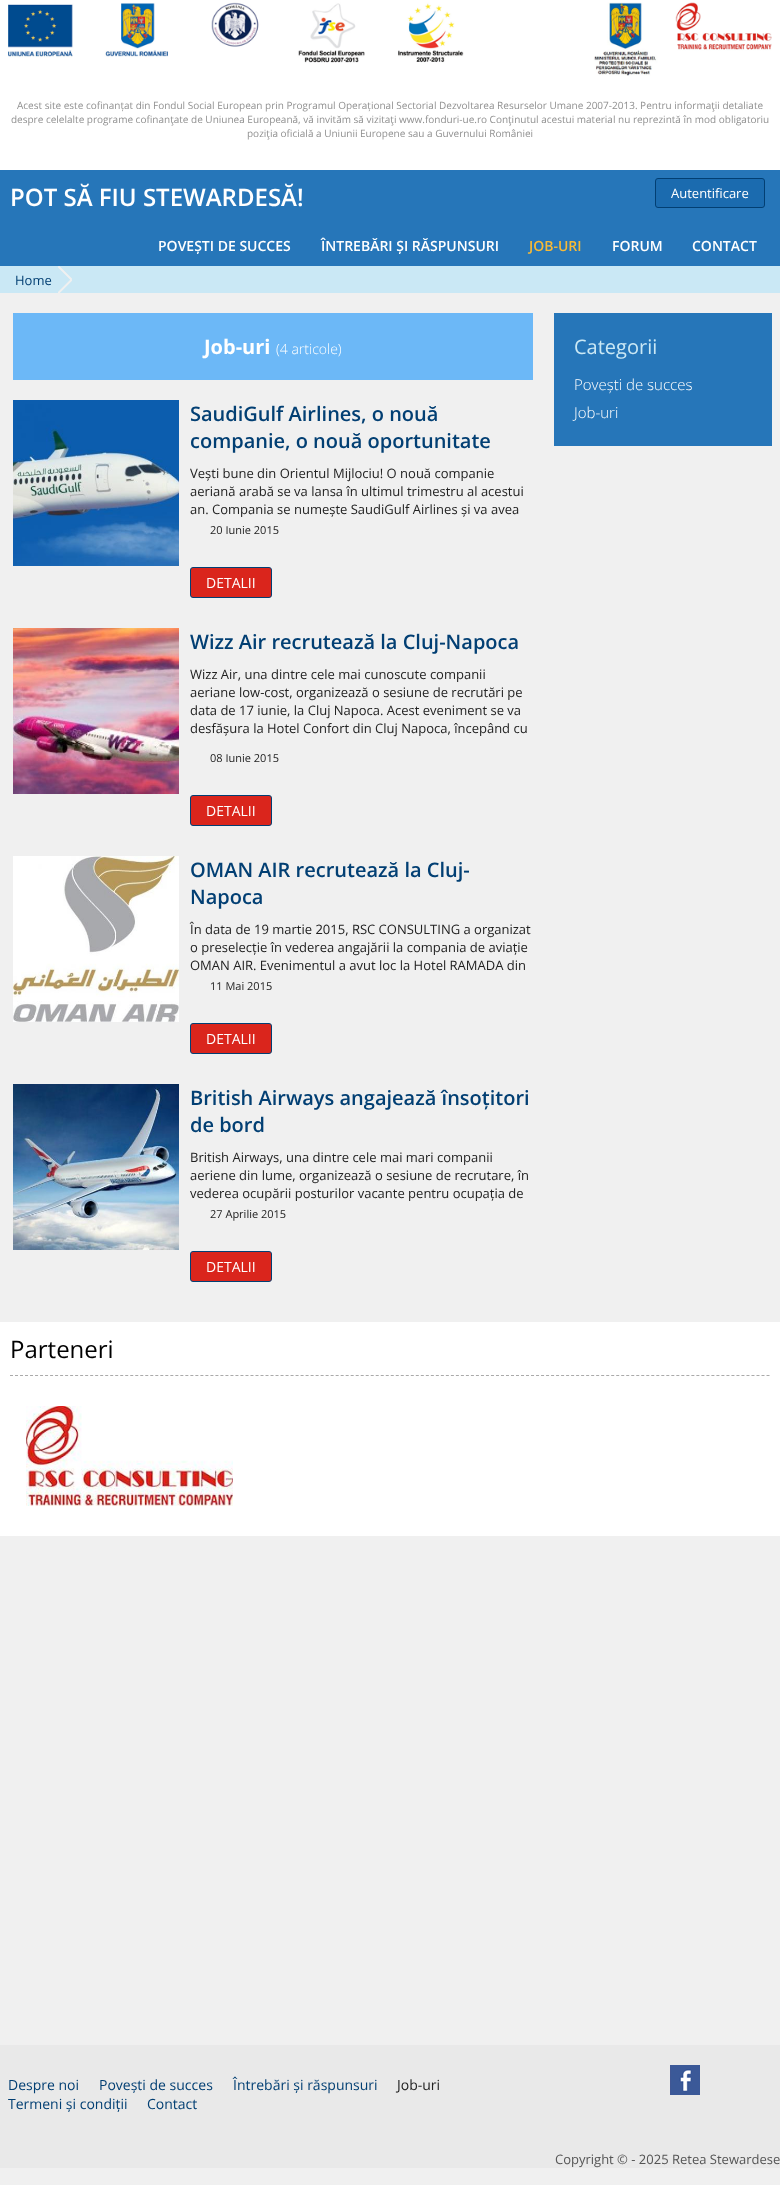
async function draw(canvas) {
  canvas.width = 780;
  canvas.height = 2185;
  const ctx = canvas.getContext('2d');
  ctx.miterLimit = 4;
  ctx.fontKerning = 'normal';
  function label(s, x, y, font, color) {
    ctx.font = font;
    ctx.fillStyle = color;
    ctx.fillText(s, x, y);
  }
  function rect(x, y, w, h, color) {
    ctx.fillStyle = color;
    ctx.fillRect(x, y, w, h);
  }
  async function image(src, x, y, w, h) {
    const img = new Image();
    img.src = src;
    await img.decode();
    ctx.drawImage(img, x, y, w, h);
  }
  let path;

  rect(0, 0, 780, 2185, '#f0f0f0');
  rect(0, 0, 780, 170, '#fff');
  await image('assets/img1.png', 8, 2, 764, 74);
  label('Acest site este cofinanțat din Fondul Social European prin Programul Operațional Sectorial Dezvoltarea Resurselor Umane 2007-2013. Pentru informaţii detaliate', 17, 109, '10px Open Sans', '#909090');
  label('despre celelalte programe cofinanţate de Uniunea Europeană, vă invităm să vizitaţi www.fonduri-ue.ro Conţinutul acestui material nu reprezintă în mod obligatoriu', 11, 123, '10px Open Sans', '#909090');
  label('poziţia oficială a Uniunii Europene sau a Guvernului României', 247, 137, '10px Open Sans', '#909090');
  rect(0, 170, 780, 96, '#2676b9');
  label('POT SĂ FIU STEWARDESĂ!', 10, 206, '600 24px Open Sans', '#fff');
  ctx.fillStyle = '#1b6baf';
  ctx.beginPath();
  ctx.roundRect(655.5, 178.5, 109, 29, 2.5);
  ctx.fill();
  ctx.strokeStyle = '#023f73';
  ctx.stroke();
  label('Autentificare', 671, 198, '13px Open Sans', '#fff');
  label('POVEȘTI DE SUCCES', 158, 251, '600 14px Open Sans', '#fff');
  label('ÎNTREBĂRI ȘI RĂSPUNSURI', 321, 251, '600 14px Open Sans', '#fff');
  label('JOB-URI', 529, 251, '600 14px Open Sans', '#f8ba36');
  label('FORUM', 612, 251, '600 14px Open Sans', '#fff');
  label('CONTACT', 692, 251, '600 14px Open Sans', '#fff');
  rect(0, 266, 780, 27, '#cae8f5');
  await image('assets/img2.png', 58, 266, 14, 27);
  label('Home', 15, 285, '13px Open Sans', '#023f73');
  rect(13, 313, 520, 67, '#6cb8f7');
  label('Job-uri', 204, 354, 'bold 20px Open Sans', '#fff');
  label('(4 articole)', 276, 354, '300 14px Open Sans', '#fff');
  await image('assets/img3.png', 13, 400, 166, 166);
  label('SaudiGulf Airlines, o nouă', 190, 421, '600 20px Open Sans', '#023f73');
  label('companie, o nouă oportunitate', 190, 448, '600 20px Open Sans', '#023f73');
  label('Vești bune din Orientul Mijlociu! O nouă companie', 190, 478, '13px Open Sans', '#222');
  label('aeriană arabă se va lansa în ultimul trimestru al acestui', 190, 496, '13px Open Sans', '#222');
  label('an. Compania se numește SaudiGulf Airlines și va avea', 190, 514, '13px Open Sans', '#222');
  label('20 Iunie 2015', 210, 534, '11px Open Sans', '#222');
  ctx.fillStyle = '#da251c';
  ctx.beginPath();
  ctx.roundRect(190.5, 567.5, 81, 30, 2.5);
  ctx.fill();
  ctx.stroke();
  label('DETALII', 206, 588, '14px Open Sans', '#fff');
  await image('assets/img4.png', 13, 628, 166, 166);
  label('Wizz Air recrutează la Cluj-Napoca', 190, 649, '600 20px Open Sans', '#023f73');
  label('Wizz Air, una dintre cele mai cunoscute companii', 190, 679, '13px Open Sans', '#222');
  label('aeriane low-cost, organizează o sesiune de recrutări pe', 190, 697, '13px Open Sans', '#222');
  label('data de 17 iunie, la Cluj Napoca. Acest eveniment se va', 190, 715, '13px Open Sans', '#222');
  label('desfășura la Hotel Confort din Cluj Napoca, începând cu', 190, 733, '13px Open Sans', '#222');
  label('08 Iunie 2015', 210, 762, '11px Open Sans', '#222');
  ctx.fillStyle = '#da251c';
  ctx.beginPath();
  ctx.roundRect(190.5, 795.5, 81, 30, 2.5);
  ctx.fill();
  ctx.stroke();
  label('DETALII', 206, 816, '14px Open Sans', '#fff');
  await image('assets/img5.png', 13, 856, 166, 166);
  label('OMAN AIR recrutează la Cluj-', 190, 877, '600 20px Open Sans', '#023f73');
  label('Napoca', 190, 904, '600 20px Open Sans', '#023f73');
  label('În data de 19 martie 2015, RSC CONSULTING a organizat', 190, 934, '13px Open Sans', '#222');
  label('o preselecție în vederea angajării la compania de aviație', 190, 952, '13px Open Sans', '#222');
  label('OMAN AIR. Evenimentul a avut loc la Hotel RAMADA din', 190, 970, '13px Open Sans', '#222');
  label('11 Mai 2015', 210, 990, '11px Open Sans', '#222');
  ctx.fillStyle = '#da251c';
  ctx.beginPath();
  ctx.roundRect(190.5, 1023.5, 81, 30, 2.5);
  ctx.fill();
  ctx.stroke();
  label('DETALII', 206, 1044, '14px Open Sans', '#fff');
  await image('assets/img6.png', 13, 1084, 166, 166);
  label('British Airways angajează însoțitori', 190, 1105, '600 20px Open Sans', '#023f73');
  label('de bord', 190, 1132, '600 20px Open Sans', '#023f73');
  label('British Airways, una dintre cele mai mari companii', 190, 1162, '13px Open Sans', '#222');
  label('aeriene din lume, organizează o sesiune de recrutare, în', 190, 1180, '13px Open Sans', '#222');
  ctx.save();
  ctx.beginPath();
  ctx.rect(190, 1084, 343, 117);
  ctx.clip();
  label('vederea ocupării posturilor vacante pentru ocupația de', 190, 1198, '13px Open Sans', '#222');
  ctx.restore();
  label('27 Aprilie 2015', 210, 1218, '11px Open Sans', '#222');
  ctx.fillStyle = '#da251c';
  ctx.beginPath();
  ctx.roundRect(190.5, 1251.5, 81, 30, 2.5);
  ctx.fill();
  ctx.stroke();
  label('DETALII', 206, 1272, '14px Open Sans', '#fff');
  rect(554, 313, 218, 133, '#2676b9');
  label('Categorii', 574, 354, '20px Open Sans', '#cae8f5');
  label('Povești de succes', 574, 390, '300 15px Open Sans', '#fff');
  label('Job-uri', 574, 418, '300 15px Open Sans', '#fff');
  rect(0, 1322, 780, 214, '#fff');
  path = new Path2D('M10 1375.5H770');
  ctx.strokeStyle = '#aaa';
  ctx.setLineDash([3, 2.01]);
  ctx.stroke(path);
  label('Parteneri', 10, 1358, '24px Open Sans', '#000');
  await image('assets/img7.png', 26, 1406, 207, 100);
  rect(0, 2045, 780, 123, '#e9e9e9');
  label('Despre noi', 8, 2090, '14px Open Sans', '#023f73');
  label('Povești de succes', 99, 2090, '14px Open Sans', '#023f73');
  label('Întrebări și răspunsuri', 233, 2090, '14px Open Sans', '#023f73');
  label('Job-uri', 397, 2090, '14px Open Sans', '#222');
  label('Termeni și condiții', 8, 2109, '14px Open Sans', '#023f73');
  label('Contact', 147, 2109, '14px Open Sans', '#023f73');
  await image('assets/img8.png', 670, 2065, 30, 30);
  label('Copyright © - 2025 Retea Stewardese', 555, 2164, '13px Open Sans', '#555');
}

draw(document.querySelector('canvas'));
